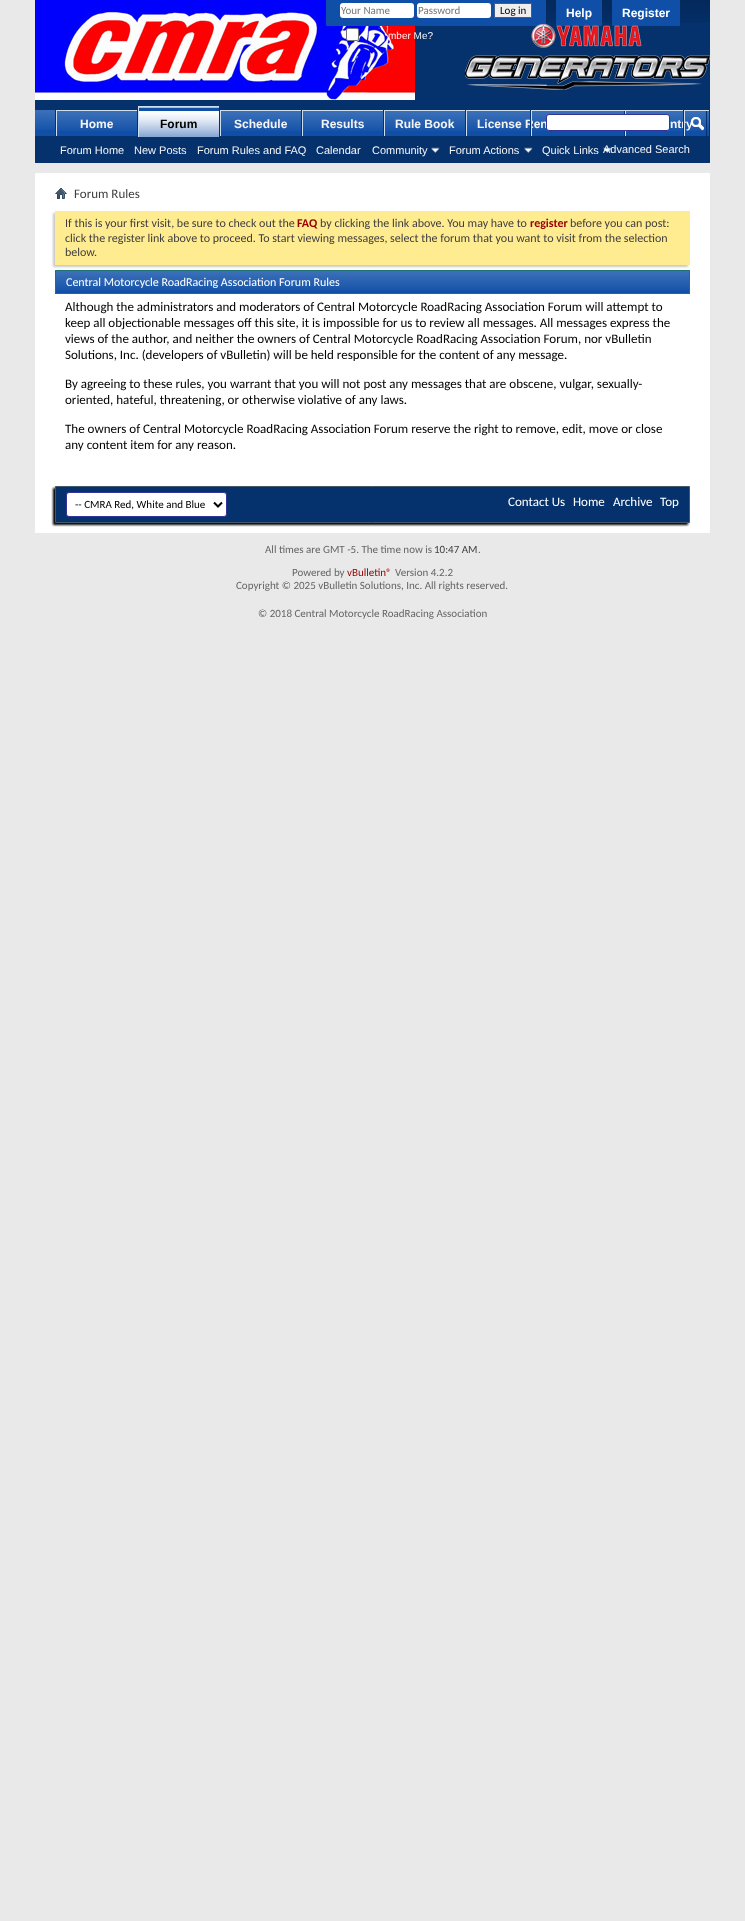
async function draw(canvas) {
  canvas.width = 745;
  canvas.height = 1921;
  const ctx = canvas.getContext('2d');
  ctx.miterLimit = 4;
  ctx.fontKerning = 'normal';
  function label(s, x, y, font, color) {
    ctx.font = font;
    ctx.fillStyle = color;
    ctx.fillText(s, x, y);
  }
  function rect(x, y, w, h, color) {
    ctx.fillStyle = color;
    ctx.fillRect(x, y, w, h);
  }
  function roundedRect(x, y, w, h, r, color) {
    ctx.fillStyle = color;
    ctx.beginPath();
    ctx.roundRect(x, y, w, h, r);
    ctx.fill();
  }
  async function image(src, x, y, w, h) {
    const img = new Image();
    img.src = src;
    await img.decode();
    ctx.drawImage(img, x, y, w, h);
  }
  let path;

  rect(0, 0, 745, 1921, '#e9e9e9');
  ctx.fillStyle = '#05316d';
  ctx.beginPath();
  ctx.roundRect(35, 0, 675, 163, [0, 0, 1, 1]);
  ctx.fill();
  await image('assets/img1.png', 546, 0, 164, 23);
  await image('assets/img2.png', 35, 0, 380, 100);
  ctx.fillStyle = '#0f4fa8';
  ctx.beginPath();
  ctx.roundRect(326, 0, 220, 26, [0, 0, 1, 1]);
  ctx.fill();
  roundedRect(340, 3, 74, 15, 3, '#fff');
  label('Your Name', 341, 14, '11px Carlito', '#777');
  roundedRect(417, 3, 74, 15, 3, '#fff');
  label('Password', 418, 14, '11px Carlito', '#777');
  ctx.fillStyle = '#efefef';
  ctx.beginPath();
  ctx.rect(494.5, 3.5, 37, 14);
  ctx.fill();
  ctx.strokeStyle = '#415d8d';
  ctx.stroke();
  label('Log in', 500, 14, '11px Carlito', '#000');
  ctx.fillStyle = '#fff';
  ctx.beginPath();
  ctx.roundRect(346.5, 28.5, 12, 12, 1.5);
  ctx.fill();
  ctx.strokeStyle = '#767676';
  ctx.stroke();
  label('mber Me?', 388, 39, '10px Liberation Sans', '#f5f5f5');
  ctx.fillStyle = '#0f4fa8';
  ctx.beginPath();
  ctx.roundRect(556, 0, 46, 26, [0, 0, 1, 1]);
  ctx.fill();
  label('Help', 566, 17, 'bold 12px Liberation Sans', '#fff');
  ctx.fillStyle = '#0f4fa8';
  ctx.beginPath();
  ctx.roundRect(612, 0, 68, 26, [0, 0, 1, 1]);
  ctx.fill();
  label('Register', 622, 17, 'bold 12px Liberation Sans', '#fff');
  await image('assets/img3.png', 465, 23, 245, 67);
  ctx.fillStyle = '#05316d';
  ctx.beginPath();
  ctx.roundRect(35, 110, 675, 53, [0, 0, 1, 1]);
  ctx.fill();
  rect(35, 110, 674, 26, '#0f4fa8');
  await image('assets/img4.png', 35, 110, 674, 20);
  rect(137, 110, 1, 27, '#05316d');
  rect(55, 110, 1, 27, '#05316d');
  rect(57, 111, 80, 19, '#0f4fa8');
  await image('assets/img5.png', 57, 111, 80, 20);
  rect(56, 110, 81, 1, '#cedfeb');
  rect(56, 110, 1, 27, '#cedfeb');
  label('Home', 80, 128, 'bold 12px Liberation Sans', '#f5f5f5');
  rect(219, 110, 1, 26, '#05316d');
  rect(301, 110, 1, 27, '#05316d');
  rect(220, 110, 81, 1, '#cedfeb');
  rect(220, 110, 1, 27, '#cedfeb');
  rect(383, 110, 1, 27, '#05316d');
  rect(302, 110, 81, 1, '#cedfeb');
  rect(302, 110, 1, 27, '#cedfeb');
  rect(465, 110, 1, 27, '#05316d');
  rect(384, 110, 81, 1, '#cedfeb');
  rect(384, 110, 1, 27, '#cedfeb');
  rect(624, 110, 1, 27, '#05316d');
  rect(466, 110, 64, 1, '#cedfeb');
  rect(466, 110, 1, 27, '#cedfeb');
  rect(625, 110, 1, 27, '#cedfeb');
  rect(56, 136, 570, 1, '#05316d');
  rect(139, 107, 80, 30, '#0f4fa8');
  await image('assets/img6.png', 139, 107, 80, 30);
  rect(138, 106, 81, 1, '#cedfeb');
  rect(138, 106, 1, 31, '#cedfeb');
  label('Forum', 160, 128, 'bold 12px Liberation Sans', '#000');
  rect(221, 111, 80, 19, '#0f4fa8');
  await image('assets/img5.png', 221, 111, 80, 20);
  label('Schedule', 234, 128, 'bold 12px Liberation Sans', '#f5f5f5');
  rect(303, 111, 80, 19, '#0f4fa8');
  await image('assets/img5.png', 303, 111, 80, 20);
  label('Results', 321, 128, 'bold 12px Liberation Sans', '#f5f5f5');
  rect(385, 111, 80, 19, '#0f4fa8');
  await image('assets/img5.png', 385, 111, 80, 20);
  label('Rule Book', 395, 128, 'bold 12px Liberation Sans', '#f5f5f5');
  rect(467, 111, 157, 19, '#0f4fa8');
  await image('assets/img7.png', 467, 111, 157, 20);
  label('License Ren', 477, 128, 'bold 12px Liberation Sans', '#f5f5f5');
  rect(706, 110, 1, 27, '#05316d');
  rect(626, 111, 80, 19, '#0f4fa8');
  await image('assets/img5.png', 626, 111, 80, 20);
  label('ntry', 670, 128, 'bold 12px Liberation Sans', '#f5f5f5');
  label('Forum Home', 60, 154, '11px Liberation Sans', '#f5f5f5');
  label('New Posts', 134, 154, '11px Liberation Sans', '#f5f5f5');
  label('Forum Rules and FAQ', 197, 154, '11px Liberation Sans', '#f5f5f5');
  label('Calendar', 316, 154, '11px Liberation Sans', '#f5f5f5');
  label('Community', 372, 154, '11px Liberation Sans', '#f5f5f5');
  await image('assets/img8.png', 431, 147, 9, 6);
  label('Forum Actions', 449, 154, '11px Liberation Sans', '#f5f5f5');
  await image('assets/img8.png', 524, 147, 9, 6);
  label('Quick Links', 542, 154, '11px Liberation Sans', '#f5f5f5');
  await image('assets/img8.png', 603, 147, 9, 6);
  rect(530, 110, 1, 26, '#05316d');
  rect(531, 110, 152, 1, '#cedfeb');
  rect(531, 110, 1, 26, '#cedfeb');
  ctx.fillStyle = '#fff';
  ctx.beginPath();
  ctx.roundRect(546.5, 114.5, 123, 16, 2.5);
  ctx.fill();
  ctx.strokeStyle = '#339';
  ctx.stroke();
  rect(683, 110, 1, 26, '#05316d');
  rect(684, 110, 25, 1, '#cedfeb');
  rect(684, 110, 1, 26, '#cedfeb');
  await image('assets/img9.png', 691, 117, 13, 14);
  label('Advanced Search', 603, 153, '11px Liberation Sans', '#f5f5f5');
  roundedRect(35, 173, 675, 360, 1, '#fff');
  await image('assets/img10.png', 55, 188, 12, 11);
  label('Forum Rules', 74, 198, '13px Carlito', '#3e3e3e');
  ctx.fillStyle = '#c8c8c8';
  ctx.filter = 'blur(1px)';
  ctx.beginPath();
  ctx.rect(53, 213, 635, 54);
  ctx.fill();
  ctx.filter = 'none';
  rect(55, 211, 635, 54, '#ffeb90');
  label('If this is your first visit, be sure to check out the', 65, 227, '12px Carlito', '#3e3e3e');
  label('FAQ', 297, 227, 'bold 12px Carlito', '#900');
  label('by clicking the link above. You may have to', 320, 227, '12px Carlito', '#3e3e3e');
  label('register', 530, 227, 'bold 12px Carlito', '#900');
  label('before you can post:', 570, 227, '12px Carlito', '#3e3e3e');
  label('click the register link above to proceed. To start viewing messages, select the forum that you want to visit from the selection', 65, 242, '12px Carlito', '#3e3e3e');
  label('below.', 65, 256, '12px Carlito', '#3e3e3e');
  ctx.fillStyle = '#0f4fa8';
  ctx.beginPath();
  ctx.roundRect(55, 270, 635, 24, [1, 1, 0, 0]);
  ctx.fill();
  await image('assets/img11.png', 56, 271, 633, 20);
  ctx.beginPath();
  ctx.roundRect(55.5, 270.5, 634, 23, [0.5, 0.5, 0, 0]);
  ctx.strokeStyle = '#1d7373';
  ctx.stroke();
  label('Central Motorcycle RoadRacing Association Forum Rules', 66, 286, '12px Carlito', '#fff');
  label('Although the administrators and moderators of Central Motorcycle RoadRacing Association Forum will attempt to', 65, 311, '13px Carlito', '#000');
  label('keep all objectionable messages off this site, it is impossible for us to review all messages. All messages express the', 65, 327, '13px Carlito', '#000');
  label('views of the author, and neither the owners of Central Motorcycle RoadRacing Association Forum, nor vBulletin', 65, 343, '13px Carlito', '#000');
  label('Solutions, Inc. (developers of vBulletin) will be held responsible for the content of any message.', 65, 359, '13px Carlito', '#000');
  label('By agreeing to these rules, you warrant that you will not post any messages that are obscene, vulgar, sexually-', 65, 388, '13px Carlito', '#000');
  label('oriented, hateful, threatening, or otherwise violative of any laws.', 65, 404, '13px Carlito', '#000');
  label('The owners of Central Motorcycle RoadRacing Association Forum reserve the right to remove, edit, move or close', 65, 433, '13px Carlito', '#000');
  label('any content item for any reason.', 65, 449, '13px Carlito', '#000');
  ctx.filter = 'blur(1px)';
  ctx.beginPath();
  ctx.rect(53, 488, 635, 37);
  ctx.fill();
  ctx.filter = 'none';
  ctx.fillStyle = '#05316d';
  ctx.beginPath();
  ctx.rect(55.5, 486.5, 634, 36);
  ctx.fill();
  ctx.strokeStyle = '#425769';
  ctx.stroke();
  ctx.fillStyle = '#fff';
  ctx.beginPath();
  ctx.roundRect(66.5, 492.5, 160, 24, 2.5);
  ctx.fill();
  ctx.strokeStyle = '#339';
  ctx.stroke();
  path = new Path2D('M214 502.5L218 506.5L222 502.5');
  ctx.strokeStyle = '#000';
  ctx.lineWidth = 2;
  ctx.stroke(path);
  label('-- CMRA Red, White and Blue', 75, 508, '11px Carlito', '#000');
  label('Contact Us', 508, 506, '13px Carlito', '#fff');
  label('Home', 573, 506, '13px Carlito', '#fff');
  label('Archive', 613, 506, '13px Carlito', '#fff');
  label('Top', 660, 506, '13px Carlito', '#fff');
  label('All times are GMT -5. The time now is', 265, 553, '11px Carlito', '#666');
  label('10:47 AM', 434, 553, '11px Carlito', '#3e3e3e');
  label('.', 478, 553, '11px Carlito', '#666');
  label('Powered by', 292, 576, '11px Carlito', '#666');
  label('vBulletin®', 347, 576, '11px Carlito', '#900');
  label('Version 4.2.2', 395, 576, '11px Carlito', '#666');
  label('Copyright © 2025 vBulletin Solutions, Inc. All rights reserved.', 236, 589, '11px Carlito', '#666');
  label('© 2018 Central Motorcycle RoadRacing Association', 258, 617, '11px Carlito', '#666');
}

draw(document.querySelector('canvas'));
